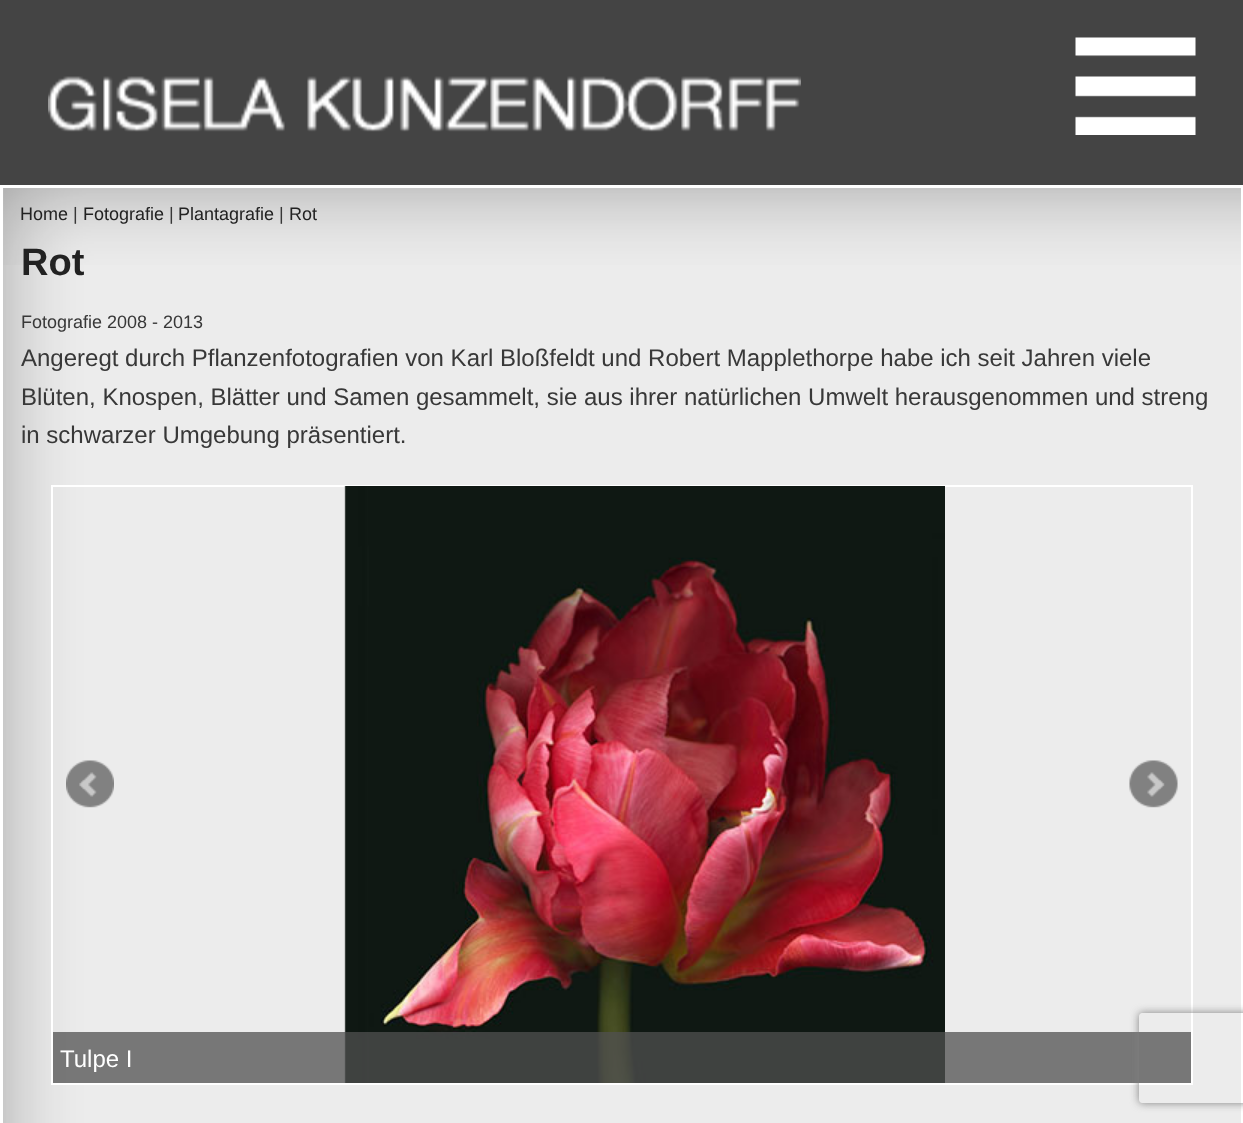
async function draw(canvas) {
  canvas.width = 1243;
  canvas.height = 1123;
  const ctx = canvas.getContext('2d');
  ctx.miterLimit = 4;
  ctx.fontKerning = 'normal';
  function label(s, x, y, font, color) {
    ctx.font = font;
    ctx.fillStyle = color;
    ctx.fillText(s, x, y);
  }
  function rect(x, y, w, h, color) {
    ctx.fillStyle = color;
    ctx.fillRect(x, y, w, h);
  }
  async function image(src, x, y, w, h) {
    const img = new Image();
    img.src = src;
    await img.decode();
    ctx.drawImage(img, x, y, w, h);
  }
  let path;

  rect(0, 0, 1243, 1123, '#fff');
  await image('assets/img1.png', 3, 188, 1238, 935);
  rect(0, 0, 1243, 185, '#444');
  await image('assets/img2.png', 48, 76, 753, 56);
  await image('assets/img3.png', 1075, 37, 121, 98);
  await image('assets/img4.png', 3, 188, 1238, 77);
  label('Home', 20, 220, '18px Liberation Sans', '#222');
  label('|', 73, 220, '18px Liberation Sans', '#383838');
  label('Fotografie', 83, 220, '18px Liberation Sans', '#222');
  label('|', 169, 220, '18px Liberation Sans', '#383838');
  label('Plantagrafie', 178, 220, '18px Liberation Sans', '#222');
  label('|', 279, 220, '18px Liberation Sans', '#383838');
  label('Rot', 289, 220, '18px Liberation Sans', '#222');
  label('Rot', 21, 275, 'bold 38px Liberation Sans', '#222');
  label('Fotografie 2008 - 2013', 21, 328, '18px Liberation Sans', '#383838');
  label('Angeregt durch Pflanzenfotografien von Karl Bloßfeldt und Robert Mapplethorpe habe ich seit Jahren viele', 21, 366, '24px Liberation Sans', '#383838');
  label('Blüten, Knospen, Blätter und Samen gesammelt, sie aus ihrer natürlichen Umwelt herausgenommen und streng', 21, 405, '24px Liberation Sans', '#383838');
  label('in schwarzer Umgebung präsentiert.', 21, 443, '24px Liberation Sans', '#383838');
  ctx.strokeStyle = '#fff';
  ctx.lineWidth = 2;
  ctx.strokeRect(52, 486, 1140, 598);
  await image('assets/img5.png', 66, 760, 48, 48);
  await image('assets/img6.png', 1129, 760, 49, 48);
  await image('assets/img7.png', 344, 486, 601, 597);
  rect(53, 1032, 1138, 51, '#505050bf');
  label('Tulpe I', 60, 1067, '24px Liberation Sans', '#fff');
  ctx.save();
  path = new Path2D('M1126 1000H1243V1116H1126ZM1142 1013H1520C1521.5 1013 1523 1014.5 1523 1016V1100C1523 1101.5 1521.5 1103 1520 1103H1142C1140.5 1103 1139 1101.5 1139 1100V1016C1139 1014.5 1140.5 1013 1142 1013Z');
  ctx.clip(path, 'evenodd');
  ctx.fillStyle = '#808080';
  ctx.filter = 'blur(4px)';
  ctx.beginPath();
  ctx.roundRect(1139, 1013, 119, 90, 3);
  ctx.fill();
  ctx.filter = 'none';
  ctx.restore();
}

draw(document.querySelector('canvas'));
